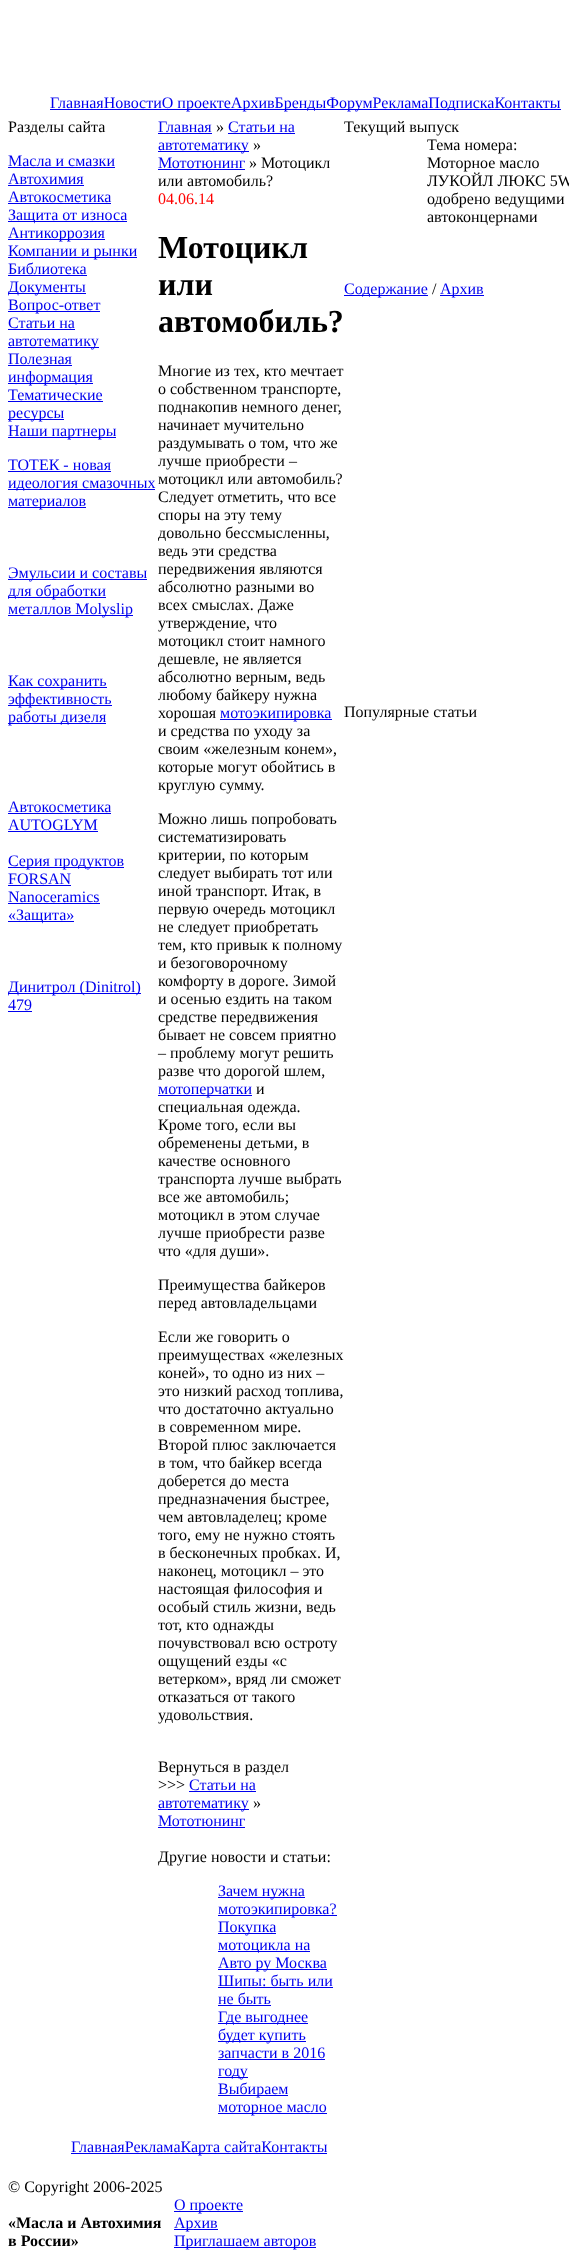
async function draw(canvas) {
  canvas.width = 569;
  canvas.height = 2258;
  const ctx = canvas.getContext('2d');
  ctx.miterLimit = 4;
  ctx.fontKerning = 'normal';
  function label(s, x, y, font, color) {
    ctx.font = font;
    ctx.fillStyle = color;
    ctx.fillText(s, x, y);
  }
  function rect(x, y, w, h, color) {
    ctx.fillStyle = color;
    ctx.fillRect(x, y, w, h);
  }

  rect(0, 0, 569, 2258, '#fff');
  rect(50, 109, 511, 1, '#00e');
  label('ГлавнаяНовостиО проектеАрхивБрендыФорумРекламаПодпискаКонтакты', 50, 108, '16px Liberation Serif', '#00e');
  label('Разделы сайта', 8, 132, '16px Liberation Serif', '#000');
  label('Масла и смазки', 8, 166, '16px Liberation Serif', '#00e');
  rect(8, 167, 107, 1, '#00e');
  label('Автохимия', 8, 184, '16px Liberation Serif', '#00e');
  rect(8, 185, 76, 1, '#00e');
  label('Автокосметика', 8, 202, '16px Liberation Serif', '#00e');
  rect(8, 203, 103, 1, '#00e');
  rect(8, 221, 119, 1, '#00e');
  label('Защита от износа', 8, 220, '16px Liberation Serif', '#00e');
  rect(8, 239, 97, 1, '#00e');
  label('Антикоррозия', 8, 238, '16px Liberation Serif', '#00e');
  rect(8, 257, 129, 1, '#00e');
  label('Компании и рынки', 8, 256, '16px Liberation Serif', '#00e');
  label('Библиотека', 8, 274, '16px Liberation Serif', '#00e');
  rect(8, 275, 79, 1, '#00e');
  rect(8, 293, 78, 1, '#00e');
  label('Документы', 8, 292, '16px Liberation Serif', '#00e');
  rect(8, 311, 92, 1, '#00e');
  label('Вопрос-ответ', 8, 310, '16px Liberation Serif', '#00e');
  label('Статьи на', 8, 328, '16px Liberation Serif', '#00e');
  rect(8, 329, 67, 1, '#00e');
  rect(8, 347, 91, 1, '#00e');
  label('автотематику', 8, 346, '16px Liberation Serif', '#00e');
  label('Полезная', 8, 364, '16px Liberation Serif', '#00e');
  rect(8, 365, 64, 1, '#00e');
  rect(8, 383, 85, 1, '#00e');
  label('информация', 8, 382, '16px Liberation Serif', '#00e');
  label('Тематические', 8, 400, '16px Liberation Serif', '#00e');
  rect(8, 401, 95, 1, '#00e');
  rect(8, 419, 56, 1, '#00e');
  label('ресурсы', 8, 418, '16px Liberation Serif', '#00e');
  rect(8, 437, 108, 1, '#00e');
  label('Наши партнеры', 8, 436, '16px Liberation Serif', '#00e');
  label('ТОТЕК - новая', 8, 470, '16px Liberation Serif', '#00e');
  rect(8, 471, 103, 1, '#00e');
  rect(8, 489, 147, 1, '#00e');
  label('идеология смазочных', 8, 488, '16px Liberation Serif', '#00e');
  rect(8, 507, 78, 1, '#00e');
  label('материалов', 8, 506, '16px Liberation Serif', '#00e');
  rect(8, 579, 139, 1, '#00e');
  label('Эмульсии и составы', 8, 578, '16px Liberation Serif', '#00e');
  rect(8, 597, 98, 1, '#00e');
  label('для обработки', 8, 596, '16px Liberation Serif', '#00e');
  rect(8, 615, 125, 1, '#00e');
  label('металлов Molyslip', 8, 614, '16px Liberation Serif', '#00e');
  rect(8, 687, 99, 1, '#00e');
  label('Как сохранить', 8, 686, '16px Liberation Serif', '#00e');
  rect(8, 705, 104, 1, '#00e');
  label('эффективность', 8, 704, '16px Liberation Serif', '#00e');
  rect(8, 723, 98, 1, '#00e');
  label('работы дизеля', 8, 722, '16px Liberation Serif', '#00e');
  label('Автокосметика', 8, 812, '16px Liberation Serif', '#00e');
  rect(8, 813, 103, 1, '#00e');
  label('AUTOGLYM', 8, 830, '16px Liberation Serif', '#00e');
  rect(8, 831, 90, 1, '#00e');
  rect(8, 867, 116, 1, '#00e');
  label('Серия продуктов', 8, 866, '16px Liberation Serif', '#00e');
  label('FORSAN', 8, 884, '16px Liberation Serif', '#00e');
  rect(8, 885, 63, 1, '#00e');
  label('Nanoceramics', 8, 902, '16px Liberation Serif', '#00e');
  rect(8, 903, 92, 1, '#00e');
  rect(8, 921, 66, 1, '#00e');
  label('«Защита»', 8, 920, '16px Liberation Serif', '#00e');
  rect(8, 993, 133, 1, '#00e');
  label('Динитрол (Dinitrol)', 8, 992, '16px Liberation Serif', '#00e');
  label('479', 8, 1010, '16px Liberation Serif', '#00e');
  rect(8, 1011, 24, 1, '#00e');
  label('Главная', 158, 132, '16px Liberation Serif', '#00e');
  rect(158, 133, 54, 1, '#00e');
  label('»', 216, 132, '16px Liberation Serif', '#000');
  label('Статьи на', 228, 132, '16px Liberation Serif', '#00e');
  rect(228, 133, 67, 1, '#00e');
  rect(158, 151, 91, 1, '#00e');
  label('автотематику', 158, 150, '16px Liberation Serif', '#00e');
  label('»', 253, 150, '16px Liberation Serif', '#000');
  label('Мототюнинг', 158, 168, '16px Liberation Serif', '#00e');
  rect(158, 169, 87, 1, '#00e');
  label('» Мотоцикл', 249, 168, '16px Liberation Serif', '#000');
  label('или автомобиль?', 158, 186, '16px Liberation Serif', '#000');
  label('04.06.14', 158, 204, '16px Liberation Serif', '#f00');
  label('Мотоцикл', 158, 258, 'bold 32px Liberation Serif', '#000');
  label('или', 158, 295, 'bold 32px Liberation Serif', '#000');
  label('автомобиль?', 158, 332, 'bold 32px Liberation Serif', '#000');
  label('Многие из тех, кто мечтает', 158, 376, '16px Liberation Serif', '#000');
  label('о собственном транспорте,', 158, 394, '16px Liberation Serif', '#000');
  label('поднакопив немного денег,', 158, 412, '16px Liberation Serif', '#000');
  label('начинает мучительно', 158, 430, '16px Liberation Serif', '#000');
  label('раздумывать о том, что же', 158, 448, '16px Liberation Serif', '#000');
  label('лучше приобрести –', 158, 466, '16px Liberation Serif', '#000');
  label('мотоцикл или автомобиль?', 158, 484, '16px Liberation Serif', '#000');
  label('Следует отметить, что все', 158, 502, '16px Liberation Serif', '#000');
  label('споры на эту тему', 158, 520, '16px Liberation Serif', '#000');
  label('довольно бессмысленны,', 158, 538, '16px Liberation Serif', '#000');
  label('ведь эти средства', 158, 556, '16px Liberation Serif', '#000');
  label('передвижения являются', 158, 574, '16px Liberation Serif', '#000');
  label('абсолютно разными во', 158, 592, '16px Liberation Serif', '#000');
  label('всех смыслах. Даже', 158, 610, '16px Liberation Serif', '#000');
  label('утверждение, что', 158, 628, '16px Liberation Serif', '#000');
  label('мотоцикл стоит намного', 158, 646, '16px Liberation Serif', '#000');
  label('дешевле, не является', 158, 664, '16px Liberation Serif', '#000');
  label('абсолютно верным, ведь', 158, 682, '16px Liberation Serif', '#000');
  label('любому байкеру нужна', 158, 700, '16px Liberation Serif', '#000');
  label('хорошая', 158, 718, '16px Liberation Serif', '#000');
  rect(220, 719, 112, 1, '#00e');
  label('мотоэкипировка', 220, 718, '16px Liberation Serif', '#00e');
  label('и средства по уходу за', 158, 736, '16px Liberation Serif', '#000');
  label('своим «железным конем»,', 158, 754, '16px Liberation Serif', '#000');
  label('которые могут обойтись в', 158, 772, '16px Liberation Serif', '#000');
  label('круглую сумму.', 158, 790, '16px Liberation Serif', '#000');
  label('Можно лишь попробовать', 158, 824, '16px Liberation Serif', '#000');
  label('систематизировать', 158, 842, '16px Liberation Serif', '#000');
  label('критерии, по которым', 158, 860, '16px Liberation Serif', '#000');
  label('следует выбирать тот или', 158, 878, '16px Liberation Serif', '#000');
  label('иной транспорт. Итак, в', 158, 896, '16px Liberation Serif', '#000');
  label('первую очередь мотоцикл', 158, 914, '16px Liberation Serif', '#000');
  label('не следует приобретать', 158, 932, '16px Liberation Serif', '#000');
  label('тем, кто привык к полному', 158, 950, '16px Liberation Serif', '#000');
  label('и безоговорочному', 158, 968, '16px Liberation Serif', '#000');
  label('комфорту в дороге. Зимой', 158, 986, '16px Liberation Serif', '#000');
  label('и осенью ездить на таком', 158, 1004, '16px Liberation Serif', '#000');
  label('средстве передвижения', 158, 1022, '16px Liberation Serif', '#000');
  label('бывает не совсем приятно', 158, 1040, '16px Liberation Serif', '#000');
  label('– проблему могут решить', 158, 1058, '16px Liberation Serif', '#000');
  label('разве что дорогой шлем,', 158, 1076, '16px Liberation Serif', '#000');
  rect(158, 1095, 94, 1, '#00e');
  label('мотоперчатки', 158, 1094, '16px Liberation Serif', '#00e');
  label('и', 256, 1094, '16px Liberation Serif', '#000');
  label('специальная одежда.', 158, 1112, '16px Liberation Serif', '#000');
  label('Кроме того, если вы', 158, 1130, '16px Liberation Serif', '#000');
  label('обременены детьми, в', 158, 1148, '16px Liberation Serif', '#000');
  label('качестве основного', 158, 1166, '16px Liberation Serif', '#000');
  label('транспорта лучше выбрать', 158, 1184, '16px Liberation Serif', '#000');
  label('все же автомобиль;', 158, 1202, '16px Liberation Serif', '#000');
  label('мотоцикл в этом случае', 158, 1220, '16px Liberation Serif', '#000');
  label('лучше приобрести разве', 158, 1238, '16px Liberation Serif', '#000');
  label('что «для души».', 158, 1256, '16px Liberation Serif', '#000');
  label('Преимущества байкеров', 158, 1290, '16px Liberation Serif', '#000');
  label('перед автовладельцами', 158, 1308, '16px Liberation Serif', '#000');
  label('Если же говорить о', 158, 1342, '16px Liberation Serif', '#000');
  label('преимуществах «железных', 158, 1360, '16px Liberation Serif', '#000');
  label('коней», то одно из них –', 158, 1378, '16px Liberation Serif', '#000');
  label('это низкий расход топлива,', 158, 1396, '16px Liberation Serif', '#000');
  label('что достаточно актуально', 158, 1414, '16px Liberation Serif', '#000');
  label('в современном мире.', 158, 1432, '16px Liberation Serif', '#000');
  label('Второй плюс заключается', 158, 1450, '16px Liberation Serif', '#000');
  label('в том, что байкер всегда', 158, 1468, '16px Liberation Serif', '#000');
  label('доберется до места', 158, 1486, '16px Liberation Serif', '#000');
  label('предназначения быстрее,', 158, 1504, '16px Liberation Serif', '#000');
  label('чем автовладелец; кроме', 158, 1522, '16px Liberation Serif', '#000');
  label('того, ему не нужно стоять', 158, 1540, '16px Liberation Serif', '#000');
  label('в бесконечных пробках. И,', 158, 1558, '16px Liberation Serif', '#000');
  label('наконец, мотоцикл – это', 158, 1576, '16px Liberation Serif', '#000');
  label('настоящая философия и', 158, 1594, '16px Liberation Serif', '#000');
  label('особый стиль жизни, ведь', 158, 1612, '16px Liberation Serif', '#000');
  label('тот, кто однажды', 158, 1630, '16px Liberation Serif', '#000');
  label('почувствовал всю остроту', 158, 1648, '16px Liberation Serif', '#000');
  label('ощущений езды «с', 158, 1666, '16px Liberation Serif', '#000');
  label('ветерком», вряд ли сможет', 158, 1684, '16px Liberation Serif', '#000');
  label('отказаться от такого', 158, 1702, '16px Liberation Serif', '#000');
  label('удовольствия.', 158, 1720, '16px Liberation Serif', '#000');
  label('Вернуться в раздел', 158, 1772, '16px Liberation Serif', '#000');
  label('>>>', 158, 1790, '16px Liberation Serif', '#000');
  label('Статьи на', 189, 1790, '16px Liberation Serif', '#00e');
  rect(189, 1791, 67, 1, '#00e');
  rect(158, 1809, 91, 1, '#00e');
  label('автотематику', 158, 1808, '16px Liberation Serif', '#00e');
  label('»', 253, 1808, '16px Liberation Serif', '#000');
  label('Мототюнинг', 158, 1826, '16px Liberation Serif', '#00e');
  rect(158, 1827, 87, 1, '#00e');
  label('Другие новости и статьи:', 158, 1862, '16px Liberation Serif', '#000');
  rect(218, 1897, 87, 1, '#00e');
  label('Зачем нужна', 218, 1896, '16px Liberation Serif', '#00e');
  rect(218, 1915, 119, 1, '#00e');
  label('мотоэкипировка?', 218, 1914, '16px Liberation Serif', '#00e');
  rect(218, 1933, 58, 1, '#00e');
  label('Покупка', 218, 1932, '16px Liberation Serif', '#00e');
  rect(218, 1951, 92, 1, '#00e');
  label('мотоцикла на', 218, 1950, '16px Liberation Serif', '#00e');
  rect(218, 1969, 109, 1, '#00e');
  label('Авто ру Москва', 218, 1968, '16px Liberation Serif', '#00e');
  label('Шипы: быть или', 218, 1986, '16px Liberation Serif', '#00e');
  rect(218, 1987, 115, 1, '#00e');
  label('не быть', 218, 2004, '16px Liberation Serif', '#00e');
  rect(218, 2005, 53, 1, '#00e');
  rect(218, 2023, 90, 1, '#00e');
  label('Где выгоднее', 218, 2022, '16px Liberation Serif', '#00e');
  rect(218, 2041, 88, 1, '#00e');
  label('будет купить', 218, 2040, '16px Liberation Serif', '#00e');
  label('запчасти в 2016', 218, 2058, '16px Liberation Serif', '#00e');
  rect(218, 2059, 107, 1, '#00e');
  rect(218, 2077, 30, 1, '#00e');
  label('году', 218, 2076, '16px Liberation Serif', '#00e');
  rect(218, 2095, 70, 1, '#00e');
  label('Выбираем', 218, 2094, '16px Liberation Serif', '#00e');
  rect(218, 2113, 109, 1, '#00e');
  label('моторное масло', 218, 2112, '16px Liberation Serif', '#00e');
  label('Текущий выпуск', 344, 132, '16px Liberation Serif', '#000');
  label('Тема номера:', 427, 150, '16px Liberation Serif', '#000');
  label('Моторное масло', 427, 168, '16px Liberation Serif', '#000');
  label('ЛУКОЙЛ ЛЮКС 5W', 427, 186, '16px Liberation Serif', '#000');
  label('одобрено ведущими', 427, 204, '16px Liberation Serif', '#000');
  label('автоконцернами', 427, 222, '16px Liberation Serif', '#000');
  rect(344, 295, 84, 1, '#00e');
  label('Содержание', 344, 294, '16px Liberation Serif', '#00e');
  label('/', 432, 294, '16px Liberation Serif', '#000');
  rect(440, 295, 44, 1, '#00e');
  label('Архив', 440, 294, '16px Liberation Serif', '#00e');
  label('Популярные статьи', 344, 717, '16px Liberation Serif', '#000');
  rect(71, 2153, 190, 1, '#00e');
  label('ГлавнаяРекламаКарта сайтаКонтакты', 71, 2152, '16px Liberation Serif', '#00e');
  rect(261, 2153, 66, 1, '#00e');
  label('© Copyright 2006-2025', 8, 2192, '16px Liberation Serif', '#000');
  label('«Масла и Автохимия', 8, 2228, 'bold 16px Liberation Serif', '#000');
  label('в России»', 8, 2246, 'bold 16px Liberation Serif', '#000');
  rect(174, 2211, 69, 1, '#00e');
  label('О проекте', 174, 2210, '16px Liberation Serif', '#00e');
  rect(174, 2229, 44, 1, '#00e');
  label('Архив', 174, 2228, '16px Liberation Serif', '#00e');
  rect(174, 2247, 142, 1, '#00e');
  label('Приглашаем авторов', 174, 2246, '16px Liberation Serif', '#00e');
}

draw(document.querySelector('canvas'));
